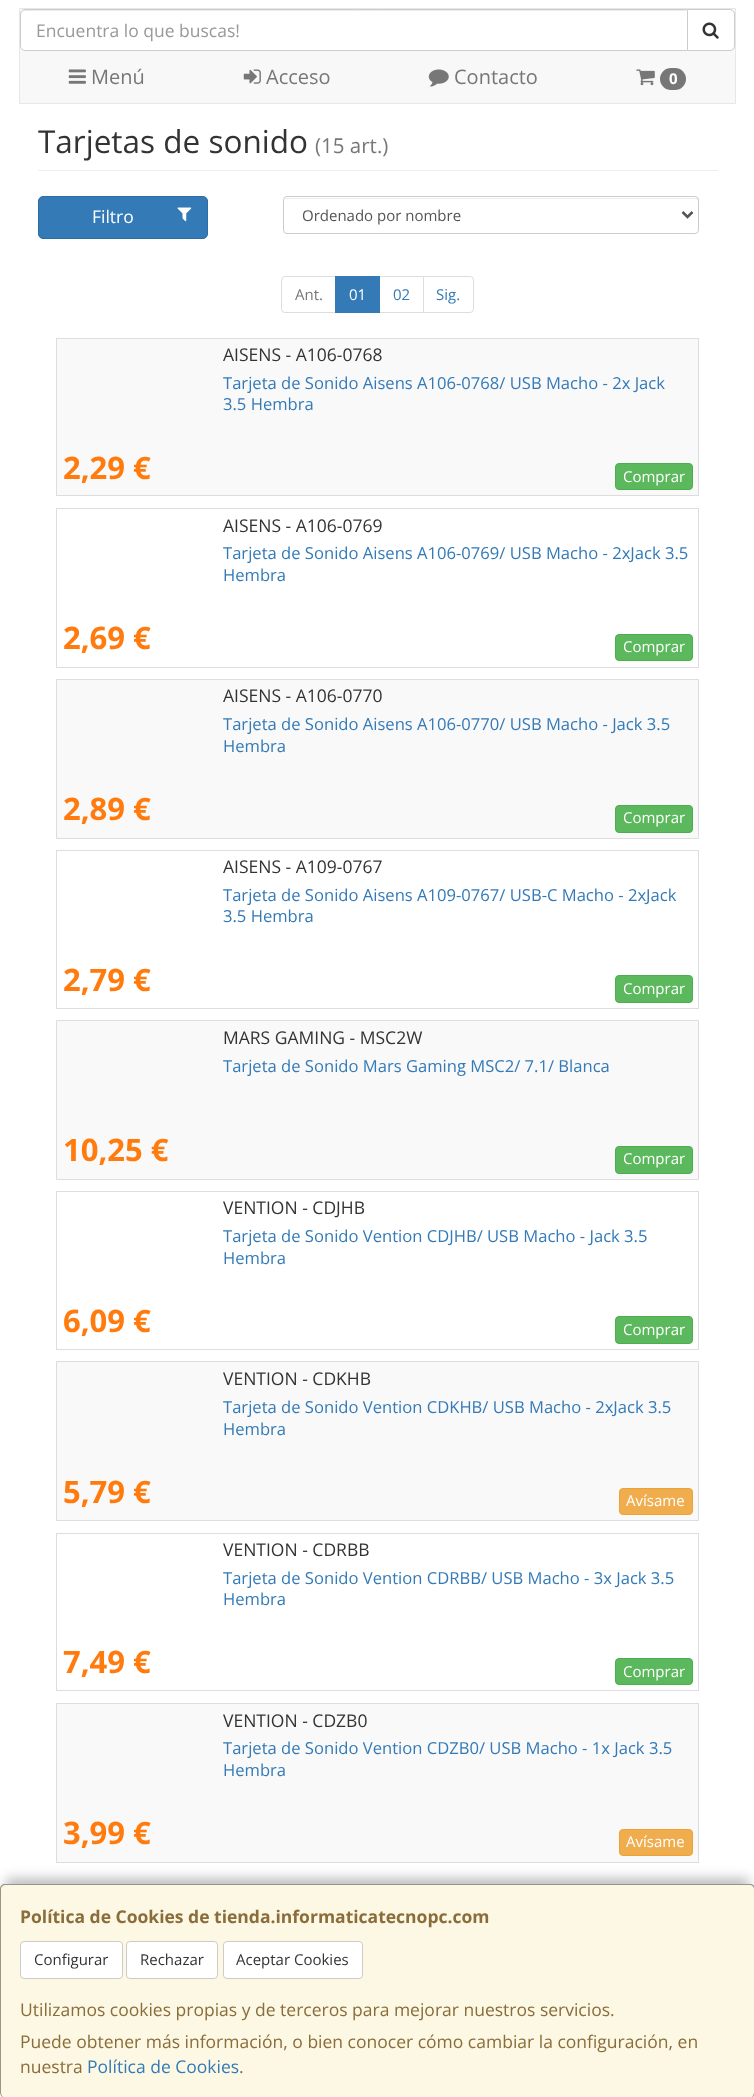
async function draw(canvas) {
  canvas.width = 754;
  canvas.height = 2097;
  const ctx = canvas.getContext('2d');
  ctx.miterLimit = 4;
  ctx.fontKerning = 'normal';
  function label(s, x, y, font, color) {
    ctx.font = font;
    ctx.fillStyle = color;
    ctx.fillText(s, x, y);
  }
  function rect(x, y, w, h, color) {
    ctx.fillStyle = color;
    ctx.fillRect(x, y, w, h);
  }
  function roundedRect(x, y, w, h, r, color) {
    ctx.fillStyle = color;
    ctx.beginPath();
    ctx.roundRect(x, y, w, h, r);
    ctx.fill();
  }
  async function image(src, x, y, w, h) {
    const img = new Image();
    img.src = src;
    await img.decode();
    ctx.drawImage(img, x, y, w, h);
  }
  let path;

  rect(0, 0, 754, 2097, '#fff');
  ctx.fillStyle = '#f8f8f8';
  ctx.beginPath();
  ctx.rect(19.5, 8.5, 716, 95);
  ctx.fill();
  ctx.strokeStyle = '#e7e7e7';
  ctx.stroke();
  ctx.fillStyle = '#fff';
  ctx.beginPath();
  ctx.roundRect(686.5, 9.5, 48, 41, [0, 4.5, 4.5, 0]);
  ctx.fill();
  ctx.strokeStyle = '#ccc';
  ctx.stroke();
  ctx.beginPath();
  ctx.roundRect(20, 9, 668, 42, [5, 0, 0, 5]);
  ctx.fill();
  ctx.fillStyle = '#ececec';
  path = new Path2D('M25 11H686V10H25C23 10 21 12 21 14V15C21 13 23 11 25 11Z');
  ctx.fill(path);
  ctx.beginPath();
  ctx.roundRect(20.5, 9.5, 667, 41, [4.5, 0, 0, 4.5]);
  ctx.stroke();
  label('Encuentra lo que buscas!', 36, 37, '17.5px Open Sans', '#999');
  await image('assets/img1.png', 702, 22, 17, 17);
  await image('assets/img2.png', 68, 69, 18, 15);
  label('Menú', 91, 84, '20px Open Sans', '#777');
  await image('assets/img3.png', 243, 69, 18, 15);
  label('Acceso', 266, 84, '20px Open Sans', '#777');
  await image('assets/img4.png', 428, 69, 21, 18);
  label('Contacto', 454, 84, '20px Open Sans', '#777');
  await image('assets/img5.png', 636, 69, 19, 17);
  roundedRect(660, 68, 26, 22, 11, '#777');
  label('0', 669, 84, 'bold 15px Open Sans', '#fff');
  rect(38, 170, 680, 1, '#eee');
  label('Tarjetas de sonido', 38, 153, '31.5px Open Sans', '#333');
  label('(15 art.)', 315, 153, '20.5px Open Sans', '#777');
  ctx.fillStyle = '#337ab7';
  ctx.beginPath();
  ctx.roundRect(38.5, 196.5, 169, 42, 4.5);
  ctx.fill();
  ctx.strokeStyle = '#2e6da4';
  ctx.stroke();
  label('Filtro', 92, 223, '17.5px Open Sans', '#fff');
  await image('assets/img6.png', 177, 207, 15, 15);
  ctx.fillStyle = '#ececec';
  path = new Path2D('M286 199H695C696 199 698 200 698 201C698 199 697 198 696 198H286L285 199L284 201C284 200 285 199 286 199Z');
  ctx.fill(path);
  ctx.beginPath();
  ctx.roundRect(283.5, 196.5, 415, 37, 3.5);
  ctx.strokeStyle = '#ccc';
  ctx.stroke();
  path = new Path2D('M682.5 212L687.5 217L692.5 212');
  ctx.strokeStyle = '#555';
  ctx.lineWidth = 2.5;
  ctx.stroke(path);
  label('Ordenado por nombre', 302, 221, '15px Open Sans', '#555');
  ctx.beginPath();
  ctx.roundRect(281.5, 276.5, 54, 36, [3.5, 0, 0, 3.5]);
  ctx.strokeStyle = '#ddd';
  ctx.lineWidth = 1;
  ctx.stroke();
  label('Ant.', 295, 300, '15px Open Sans', '#777');
  ctx.strokeRect(379.5, 276.5, 44, 36);
  rect(335, 276, 45, 37, '#337ab7');
  label('01', 349, 300, '15px Open Sans', '#fff');
  label('02', 393, 300, '15px Open Sans', '#337ab7');
  ctx.fillStyle = '#fff';
  ctx.beginPath();
  ctx.roundRect(423.5, 276.5, 50, 36, [0, 3.5, 3.5, 0]);
  ctx.fill();
  ctx.stroke();
  label('Sig.', 436, 300, '15px Open Sans', '#337ab7');
  ctx.fillStyle = '#f9f9f9';
  ctx.beginPath();
  ctx.roundRect(56, 338, 643, 158, [5, 5, 0, 0]);
  ctx.fill();
  ctx.strokeRect(56.5, 338.5, 642, 157);
  label('AISENS - A106-0768', 223, 361, '17.5px Open Sans', '#333');
  label('Tarjeta de Sonido Aisens A106-0768/ USB Macho - 2x Jack', 223, 389, '16.6px Open Sans', '#337ab7');
  label('3.5 Hembra', 223, 410, '16.6px Open Sans', '#337ab7');
  label('2,29 €', 63, 479, 'bold 31px Open Sans', '#ff7b0d');
  ctx.fillStyle = '#5cb85c';
  ctx.beginPath();
  ctx.roundRect(615.5, 463.5, 77, 26, 3.5);
  ctx.fill();
  ctx.strokeStyle = '#4cae4c';
  ctx.stroke();
  label('Comprar', 623, 482, '15px Open Sans', '#fff');
  ctx.strokeStyle = '#ddd';
  ctx.strokeRect(56.5, 508.5, 642, 159);
  label('AISENS - A106-0769', 223, 532, '17.5px Open Sans', '#333');
  label('Tarjeta de Sonido Aisens A106-0769/ USB Macho - 2xJack 3.5', 223, 559, '16.6px Open Sans', '#337ab7');
  label('Hembra', 223, 581, '16.6px Open Sans', '#337ab7');
  label('2,69 €', 63, 649, 'bold 31px Open Sans', '#ff7b0d');
  ctx.fillStyle = '#5cb85c';
  ctx.beginPath();
  ctx.roundRect(615.5, 634.5, 77, 26, 3.5);
  ctx.fill();
  ctx.strokeStyle = '#4cae4c';
  ctx.stroke();
  label('Comprar', 623, 652, '15px Open Sans', '#fff');
  ctx.fillStyle = '#f9f9f9';
  ctx.beginPath();
  ctx.rect(56.5, 679.5, 642, 159);
  ctx.fill();
  ctx.strokeStyle = '#ddd';
  ctx.stroke();
  label('AISENS - A106-0770', 223, 702, '17.5px Open Sans', '#333');
  label('Tarjeta de Sonido Aisens A106-0770/ USB Macho - Jack 3.5', 223, 730, '16.6px Open Sans', '#337ab7');
  label('Hembra', 223, 752, '16.6px Open Sans', '#337ab7');
  label('2,89 €', 63, 820, 'bold 31px Open Sans', '#ff7b0d');
  ctx.fillStyle = '#5cb85c';
  ctx.beginPath();
  ctx.roundRect(615.5, 805.5, 77, 27, 3.5);
  ctx.fill();
  ctx.strokeStyle = '#4cae4c';
  ctx.stroke();
  label('Comprar', 623, 823, '15px Open Sans', '#fff');
  ctx.strokeStyle = '#ddd';
  ctx.strokeRect(56.5, 850.5, 642, 158);
  label('AISENS - A109-0767', 223, 873, '17.5px Open Sans', '#333');
  label('Tarjeta de Sonido Aisens A109-0767/ USB-C Macho - 2xJack', 223, 901, '16.6px Open Sans', '#337ab7');
  label('3.5 Hembra', 223, 922, '16.6px Open Sans', '#337ab7');
  label('2,79 €', 63, 991, 'bold 31px Open Sans', '#ff7b0d');
  ctx.fillStyle = '#5cb85c';
  ctx.beginPath();
  ctx.roundRect(615.5, 975.5, 77, 27, 3.5);
  ctx.fill();
  ctx.strokeStyle = '#4cae4c';
  ctx.stroke();
  label('Comprar', 623, 994, '15px Open Sans', '#fff');
  ctx.fillStyle = '#f9f9f9';
  ctx.beginPath();
  ctx.rect(56.5, 1020.5, 642, 159);
  ctx.fill();
  ctx.strokeStyle = '#ddd';
  ctx.stroke();
  label('MARS GAMING - MSC2W', 223, 1044, '17.5px Open Sans', '#333');
  label('Tarjeta de Sonido Mars Gaming MSC2/ 7.1/ Blanca', 223, 1072, '16.6px Open Sans', '#337ab7');
  label('10,25 €', 63, 1161, 'bold 31px Open Sans', '#ff7b0d');
  ctx.fillStyle = '#5cb85c';
  ctx.beginPath();
  ctx.roundRect(615.5, 1146.5, 77, 27, 3.5);
  ctx.fill();
  ctx.strokeStyle = '#4cae4c';
  ctx.stroke();
  label('Comprar', 623, 1164, '15px Open Sans', '#fff');
  ctx.strokeStyle = '#ddd';
  ctx.strokeRect(56.5, 1191.5, 642, 158);
  label('VENTION - CDJHB', 223, 1214, '17.5px Open Sans', '#333');
  label('Tarjeta de Sonido Vention CDJHB/ USB Macho - Jack 3.5', 223, 1242, '16.6px Open Sans', '#337ab7');
  label('Hembra', 223, 1264, '16.6px Open Sans', '#337ab7');
  label('6,09 €', 63, 1332, 'bold 31px Open Sans', '#ff7b0d');
  ctx.fillStyle = '#5cb85c';
  ctx.beginPath();
  ctx.roundRect(615.5, 1316.5, 77, 27, 3.5);
  ctx.fill();
  ctx.strokeStyle = '#4cae4c';
  ctx.stroke();
  label('Comprar', 623, 1335, '15px Open Sans', '#fff');
  ctx.fillStyle = '#f9f9f9';
  ctx.beginPath();
  ctx.rect(56.5, 1361.5, 642, 159);
  ctx.fill();
  ctx.strokeStyle = '#ddd';
  ctx.stroke();
  label('VENTION - CDKHB', 223, 1385, '17.5px Open Sans', '#333');
  label('Tarjeta de Sonido Vention CDKHB/ USB Macho - 2xJack 3.5', 223, 1413, '16.6px Open Sans', '#337ab7');
  label('Hembra', 223, 1435, '16.6px Open Sans', '#337ab7');
  label('5,79 €', 63, 1503, 'bold 31px Open Sans', '#ff7b0d');
  ctx.fillStyle = '#f0ad4e';
  ctx.beginPath();
  ctx.roundRect(619.5, 1488.5, 73, 26, 3.5);
  ctx.fill();
  ctx.strokeStyle = '#eea236';
  ctx.stroke();
  label('Avísame', 626, 1506, '15px Open Sans', '#fff');
  ctx.strokeStyle = '#ddd';
  ctx.strokeRect(56.5, 1533.5, 642, 157);
  label('VENTION - CDRBB', 223, 1556, '17.5px Open Sans', '#333');
  label('Tarjeta de Sonido Vention CDRBB/ USB Macho - 3x Jack 3.5', 223, 1584, '16.6px Open Sans', '#337ab7');
  label('Hembra', 223, 1605, '16.6px Open Sans', '#337ab7');
  label('7,49 €', 63, 1673, 'bold 31px Open Sans', '#ff7b0d');
  ctx.fillStyle = '#5cb85c';
  ctx.beginPath();
  ctx.roundRect(615.5, 1658.5, 77, 26, 3.5);
  ctx.fill();
  ctx.strokeStyle = '#4cae4c';
  ctx.stroke();
  label('Comprar', 623, 1677, '15px Open Sans', '#fff');
  ctx.fillStyle = '#f9f9f9';
  ctx.beginPath();
  ctx.roundRect(56, 1703, 643, 160, [0, 0, 5, 5]);
  ctx.fill();
  ctx.strokeStyle = '#ddd';
  ctx.strokeRect(56.5, 1703.5, 642, 159);
  label('VENTION - CDZB0', 223, 1727, '17.5px Open Sans', '#333');
  label('Tarjeta de Sonido Vention CDZB0/ USB Macho - 1x Jack 3.5', 223, 1754, '16.6px Open Sans', '#337ab7');
  label('Hembra', 223, 1776, '16.6px Open Sans', '#337ab7');
  label('3,99 €', 63, 1844, 'bold 31px Open Sans', '#ff7b0d');
  ctx.fillStyle = '#f0ad4e';
  ctx.beginPath();
  ctx.roundRect(619.5, 1829.5, 73, 26, 3.5);
  ctx.fill();
  ctx.strokeStyle = '#eea236';
  ctx.stroke();
  label('Avísame', 626, 1847, '15px Open Sans', '#fff');
  ctx.fillStyle = '#00000040';
  ctx.filter = 'blur(6px)';
  ctx.beginPath();
  ctx.rect(6, 1878, 743, 201);
  ctx.fill();
  ctx.filter = 'none';
  roundedRect(0, 1884, 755, 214, 5, '#fcf8e3');
  ctx.fillStyle = '#00000066';
  path = new Path2D('M5 1884H750C753 1884 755 1886 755 1889V2092C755 2095 753 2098 750 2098H5C2 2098 0 2095 0 2092V1889C0 1886 2 1884 5 1884ZM5 1885H750C752 1885 754 1887 754 1889V2092C754 2095 752 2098 750 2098H5C3 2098 1 2095 1 2092V1889C1 1887 3 1885 5 1885Z');
  ctx.fill(path, 'evenodd');
  label('Política de Cookies de tienda.informaticatecnopc.com', 20, 1923, 'bold 17.5px Open Sans', '#8a6d3b');
  ctx.fillStyle = '#fff';
  ctx.beginPath();
  ctx.roundRect(20.5, 1941.5, 102, 37, 3.5);
  ctx.fill();
  ctx.strokeStyle = '#ccc';
  ctx.stroke();
  label('Configurar', 34, 1965, '15px Open Sans', '#333');
  ctx.fillStyle = '#fff';
  ctx.beginPath();
  ctx.roundRect(126.5, 1941.5, 91, 37, 3.5);
  ctx.fill();
  ctx.stroke();
  label('Rechazar', 140, 1965, '15px Open Sans', '#333');
  ctx.fillStyle = '#fff';
  ctx.beginPath();
  ctx.roundRect(223.5, 1941.5, 139, 37, 3.5);
  ctx.fill();
  ctx.stroke();
  label('Aceptar Cookies', 236, 1965, '15px Open Sans', '#333');
  label('Utilizamos cookies propias y de terceros para mejorar nuestros servicios.', 20, 2016, '17.5px Open Sans', '#8a6d3b');
  label('Puede obtener más información, o bien conocer cómo cambiar la configuración, en', 20, 2048, '17.5px Open Sans', '#8a6d3b');
  label('nuestra', 20, 2073, '17.5px Open Sans', '#8a6d3b');
  label('Política de Cookies', 87, 2073, '17.5px Open Sans', '#337ab7');
  label('.', 239, 2073, '17.5px Open Sans', '#8a6d3b');
}

draw(document.querySelector('canvas'));
